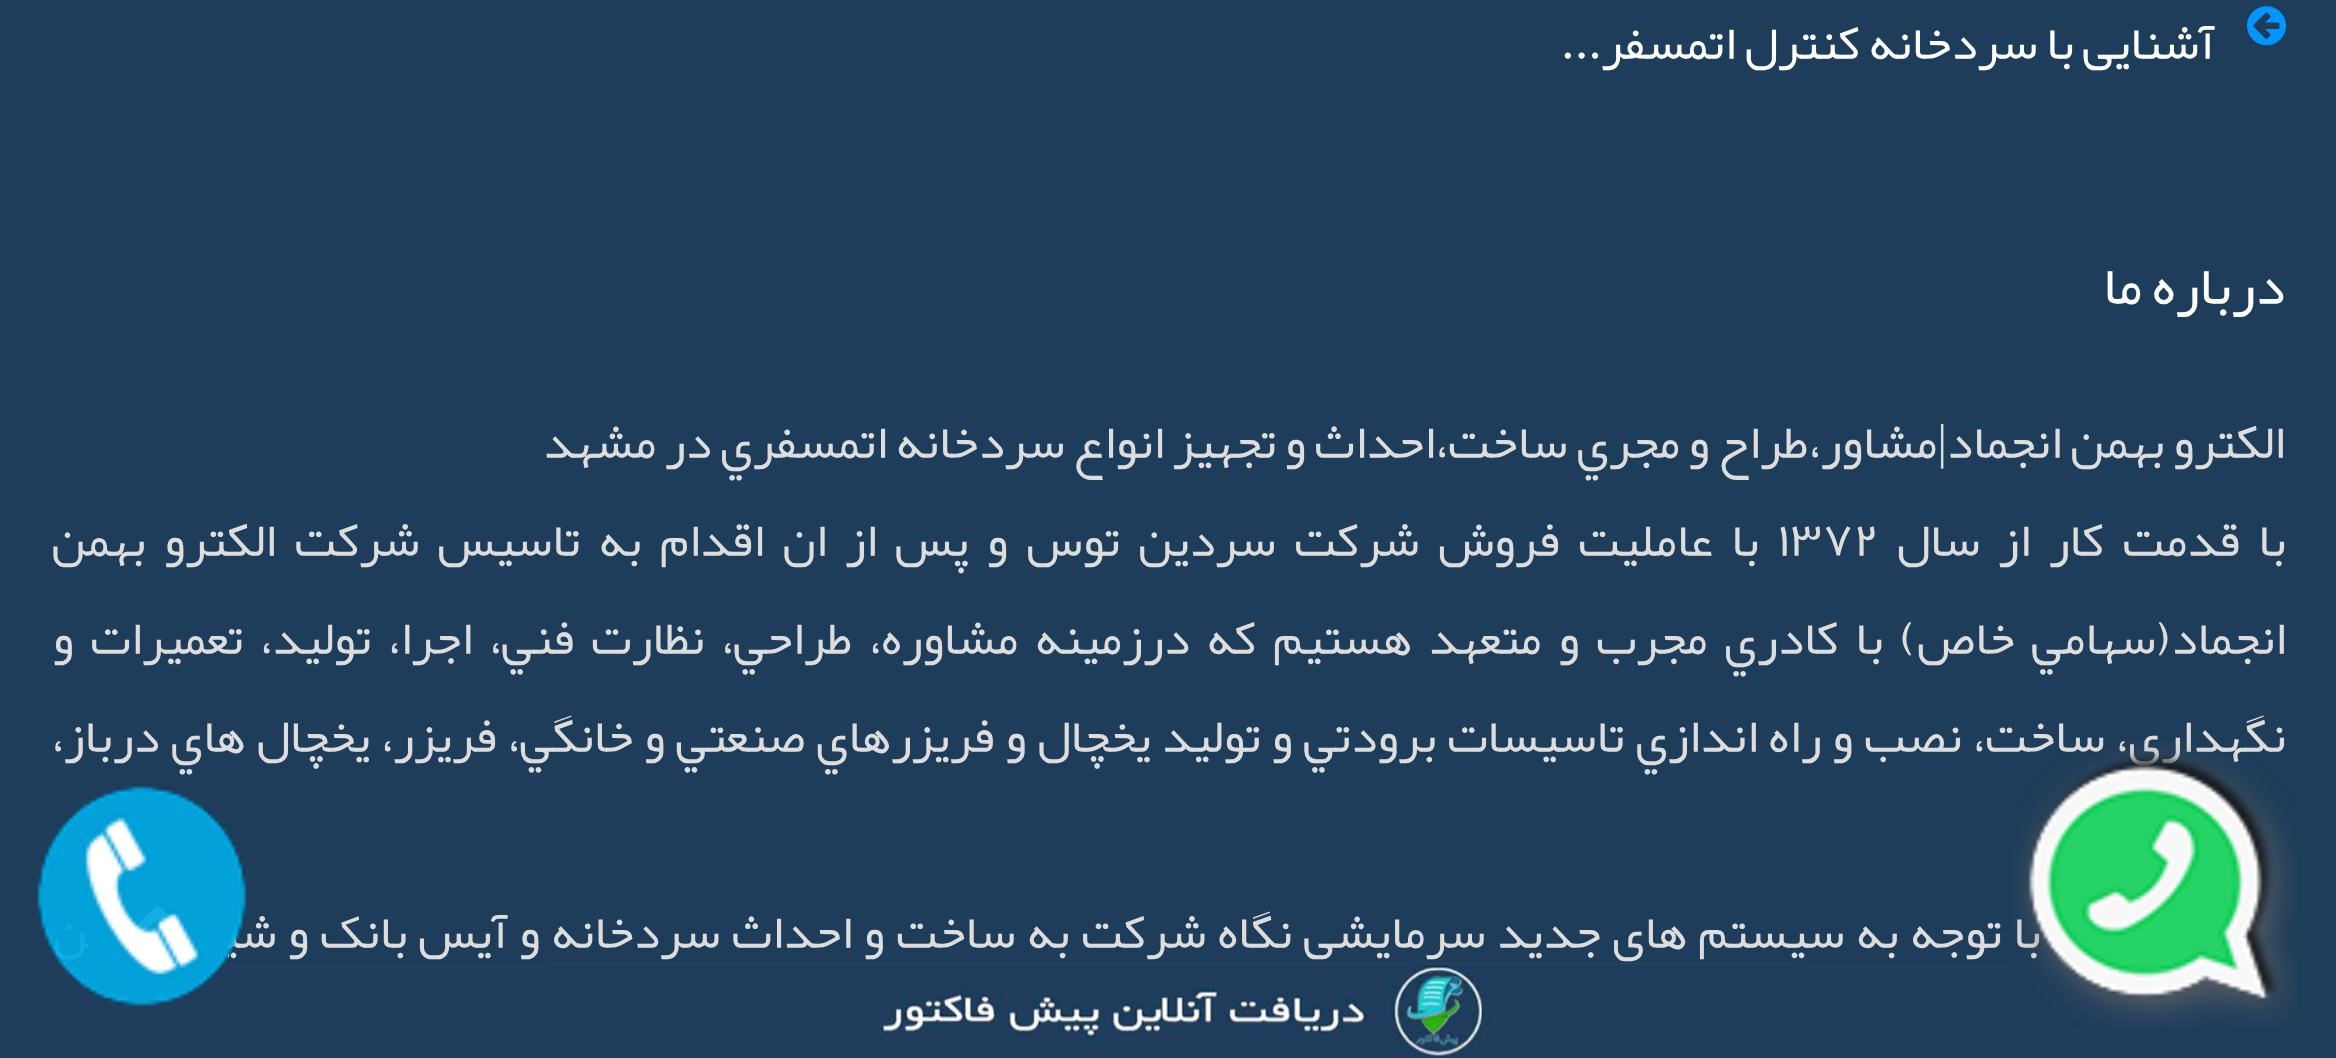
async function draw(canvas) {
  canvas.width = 2336;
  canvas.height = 1058;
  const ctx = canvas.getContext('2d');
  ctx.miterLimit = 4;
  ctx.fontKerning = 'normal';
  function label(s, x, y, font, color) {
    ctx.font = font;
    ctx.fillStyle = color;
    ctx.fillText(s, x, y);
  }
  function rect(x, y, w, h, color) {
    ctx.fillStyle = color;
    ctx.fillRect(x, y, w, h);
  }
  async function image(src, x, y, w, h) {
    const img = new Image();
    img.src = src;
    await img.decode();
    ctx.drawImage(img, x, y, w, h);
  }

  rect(0, 0, 2336, 1058, '#1e3d5a');
  await image('assets/img1.png', 2247, 6, 39, 40);
  ctx.direction = 'rtl';
  label('آشنایی با سردخانه کنترل اتمسفر...', 2215, 59, '49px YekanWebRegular', '#fff');
  label('درباره ما', 2285, 304, '56px YekanWebRegular', '#fff');
  label('الکترو بهمن انجماد', 2285, 458, '49px YekanWebRegular', '#ddd');
  label('|', 1947, 458, '49px Liberation Serif', '#ddd');
  label('مشاور،طراح و مجري ساخت،احداث و تجهيز انواع سردخانه اتمسفري در مشهد', 1937, 458, '49px YekanWebRegular', '#ddd');
  ctx.wordSpacing = '9.75px';
  label('با قدمت کار از سال', 2286, 556, '49px YekanWebRegular', '#ddd');
  ctx.wordSpacing = '0px';
  ctx.direction = 'ltr';
  label('1372', 1777, 556, '49px YekanWebRegular', '#ddd');
  ctx.wordSpacing = '9.75px';
  ctx.direction = 'rtl';
  label('با عامليت فروش شرکت سردين توس و پس از ان اقدام به تاسيس شرکت الکترو بهمن', 1759, 556, '49px YekanWebRegular', '#ddd');
  ctx.wordSpacing = '8.25px';
  label('انجماد(سهامي خاص) با کادري مجرب و متعهد هستيم که درزمينه مشاوره، طراحي، نظارت فني، اجرا، توليد، تعميرات و', 2286, 654, '49px YekanWebRegular', '#ddd');
  ctx.wordSpacing = '2.25px';
  label('نگهداري، ساخت، نصب و راه اندازي تاسيسات برودتي و توليد يخچال و فريزرهاي صنعتي و خانگي، فريزر، يخچال هاي درباز،', 2286, 752, '49px YekanWebRegular', '#ddd');
  ctx.wordSpacing = '2.6px';
  label('با توجه به سيستم هاي جديد سرمايشي نگاه شرکت به ساخت و احداث سردخانه و آيس بانک و شيرسردکن', 2041, 948, '49px YekanWebRegular', '#ddd');
  await image('assets/img2.png', 57, 963, 2182, 95);
  rect(88, 916, 140, 44, '#1e3d5a');
  await image('assets/img3.png', 135, 905, 35, 27);
  await image('assets/img4.png', 2012, 740, 287, 289);
  await image('assets/img5.png', 37, 786, 210, 220);
}

draw(document.querySelector('canvas'));
